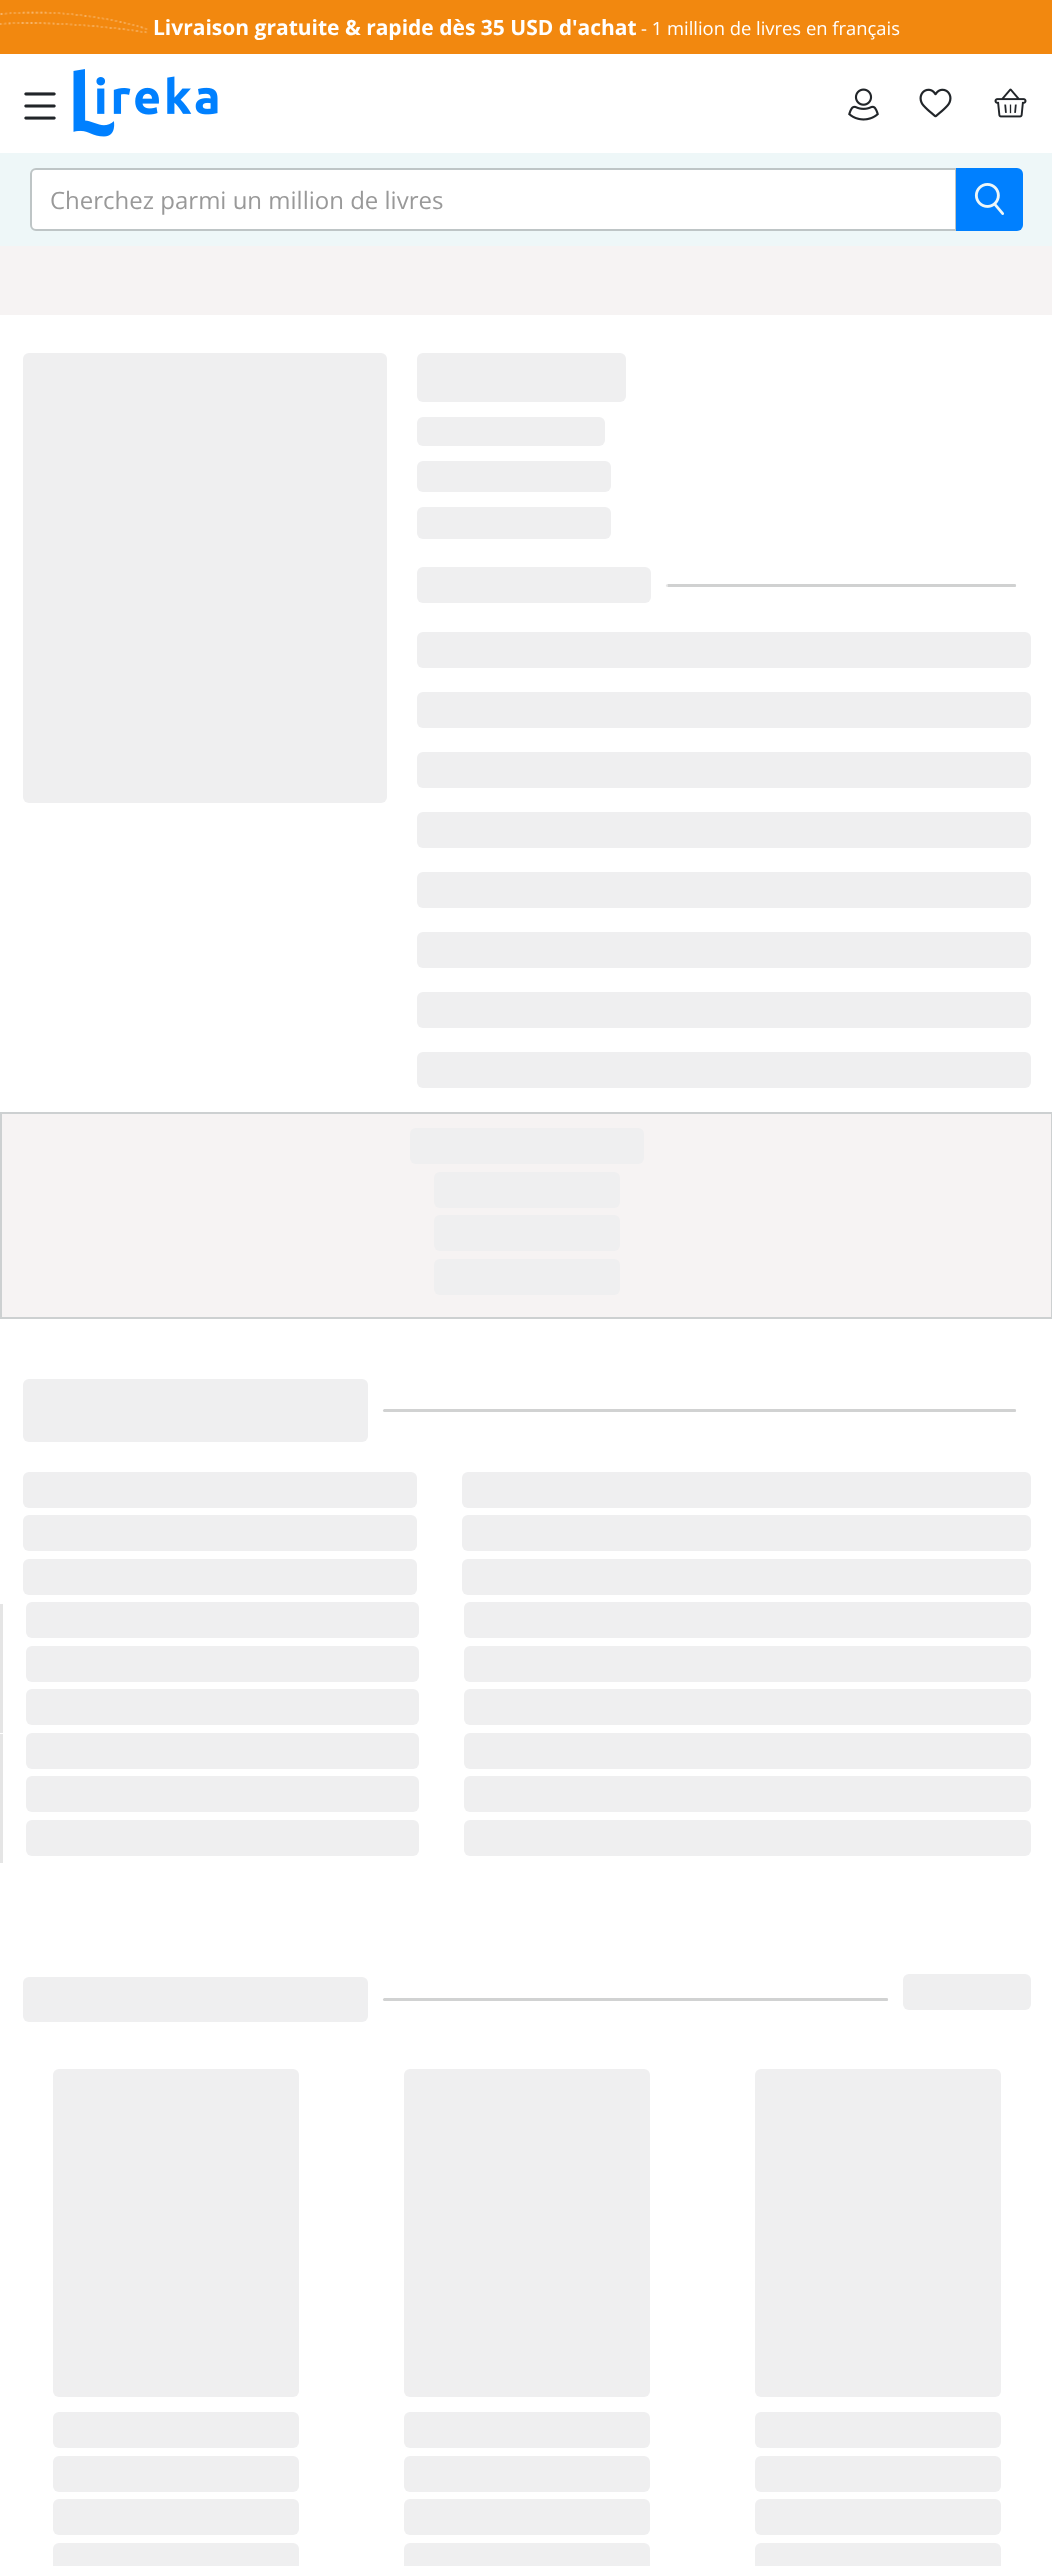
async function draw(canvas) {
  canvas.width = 1052;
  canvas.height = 2566;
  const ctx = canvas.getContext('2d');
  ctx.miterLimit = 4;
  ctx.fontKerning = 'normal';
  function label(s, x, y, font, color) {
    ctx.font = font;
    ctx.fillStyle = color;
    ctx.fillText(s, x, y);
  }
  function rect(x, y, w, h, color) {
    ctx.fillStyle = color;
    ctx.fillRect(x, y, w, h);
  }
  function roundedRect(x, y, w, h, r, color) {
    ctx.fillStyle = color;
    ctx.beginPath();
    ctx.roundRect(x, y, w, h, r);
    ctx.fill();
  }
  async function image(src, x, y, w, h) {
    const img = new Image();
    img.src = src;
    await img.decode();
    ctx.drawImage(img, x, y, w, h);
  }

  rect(0, 0, 1052, 2566, '#fff');
  rect(384, 1998, 504, 3, '#e9e9ea');
  rect(384, 1409, 632, 3, '#e9e9ea');
  rect(0, 0, 1052, 54, '#f2880f');
  await image('assets/img1.png', 0, 11, 148, 23);
  label('Livraison gratuite & rapide dès 35 USD d\'achat', 153, 35, 'bold 21px Open Sans', '#fff');
  label('- 1 million de livres en français', 641, 35, '18.4px Open Sans', '#fff');
  await image('assets/img2.png', 24, 92, 32, 28);
  await image('assets/img3.png', 73, 69, 145, 68);
  await image('assets/img4.png', 848, 88, 31, 33);
  await image('assets/img5.png', 919, 88, 33, 30);
  await image('assets/img6.png', 994, 88, 33, 30);
  rect(0, 153, 1052, 93, '#eef7f8');
  ctx.fillStyle = '#fff';
  ctx.beginPath();
  ctx.roundRect(31, 169, 925, 61, [5, 0, 0, 5]);
  ctx.fill();
  ctx.strokeStyle = '#bec5c6';
  ctx.lineWidth = 2;
  ctx.stroke();
  label('Cherchez parmi un million de livres', 50, 209, '24px Open Sans', '#999');
  ctx.fillStyle = '#0080ff';
  ctx.beginPath();
  ctx.roundRect(956, 168, 67, 63, [0, 6, 6, 0]);
  ctx.fill();
  await image('assets/img7.png', 974, 183, 30, 32);
  rect(0, 246, 1052, 69, '#f6f3f3');
  roundedRect(23, 353, 364, 450, 6, '#efeff0');
  roundedRect(417, 353, 209, 49, 6, '#efeff0');
  roundedRect(417, 417, 188, 29, 6, '#efeff0');
  roundedRect(417, 461, 194, 31, 6, '#efeff0');
  roundedRect(417, 507, 194, 32, 6, '#efeff0');
  roundedRect(417, 567, 234, 36, 6, '#efeff0');
  roundedRect(666, 584, 350, 3, 1.5, '#e5e5e5');
  rect(668, 584, 348, 3, '#2125291a');
  roundedRect(417, 632, 614, 36, 6, '#efeff0');
  roundedRect(417, 692, 614, 36, 6, '#efeff0');
  roundedRect(417, 752, 614, 36, 6, '#efeff0');
  roundedRect(417, 812, 614, 36, 6, '#efeff0');
  roundedRect(417, 872, 614, 36, 6, '#efeff0');
  roundedRect(417, 932, 614, 36, 6, '#efeff0');
  roundedRect(417, 992, 614, 36, 6, '#efeff0');
  roundedRect(417, 1052, 614, 36, 6, '#efeff0');
  ctx.fillStyle = '#f6f3f3';
  ctx.beginPath();
  ctx.rect(1, 1113, 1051, 205);
  ctx.fill();
  ctx.strokeStyle = '#cdd0d1';
  ctx.stroke();
  roundedRect(410, 1128, 234, 36, 6, '#efeff0');
  roundedRect(434, 1172, 186, 36, 6, '#efeff0');
  roundedRect(434, 1215, 186, 36, 6, '#efeff0');
  roundedRect(434, 1259, 186, 36, 6, '#efeff0');
  roundedRect(23, 1379, 345, 63, 6, '#efeff0');
  roundedRect(383, 1409, 633, 3, 1.5, '#d1d2d2');
  roundedRect(23, 1472, 394, 36, 6, '#efeff0');
  roundedRect(462, 1472, 569, 36, 6, '#efeff0');
  roundedRect(23, 1515, 394, 36, 6, '#efeff0');
  roundedRect(462, 1515, 569, 36, 6, '#efeff0');
  roundedRect(23, 1559, 394, 36, 6, '#efeff0');
  roundedRect(462, 1559, 569, 36, 6, '#efeff0');
  rect(0, 1604, 3, 129, '#e5e5e5');
  roundedRect(26, 1602, 393, 36, 6, '#efeff0');
  roundedRect(464, 1602, 567, 36, 6, '#efeff0');
  roundedRect(26, 1646, 393, 36, 6, '#efeff0');
  roundedRect(464, 1646, 567, 36, 6, '#efeff0');
  roundedRect(26, 1689, 393, 36, 6, '#efeff0');
  roundedRect(464, 1689, 567, 36, 6, '#efeff0');
  rect(0, 1734, 3, 129, '#e5e5e5');
  roundedRect(26, 1733, 393, 36, 6, '#efeff0');
  roundedRect(464, 1733, 567, 36, 6, '#efeff0');
  roundedRect(26, 1776, 393, 36, 6, '#efeff0');
  roundedRect(464, 1776, 567, 36, 6, '#efeff0');
  roundedRect(26, 1820, 393, 36, 6, '#efeff0');
  roundedRect(464, 1820, 567, 36, 6, '#efeff0');
  roundedRect(23, 1977, 345, 45, 6, '#efeff0');
  roundedRect(383, 1998, 505, 3, 1.5, '#d1d2d2');
  roundedRect(903, 1974, 128, 36, 6, '#efeff0');
  roundedRect(53, 2069, 246, 328, 6, '#efeff0');
  roundedRect(53, 2412, 246, 36, 6, '#efeff0');
  roundedRect(53, 2456, 246, 36, 6, '#efeff0');
  roundedRect(53, 2499, 246, 36, 6, '#efeff0');
  roundedRect(53, 2543, 246, 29, 6, '#efeff0');
  roundedRect(404, 2069, 246, 328, 6, '#efeff0');
  roundedRect(404, 2412, 246, 36, 6, '#efeff0');
  roundedRect(404, 2456, 246, 36, 6, '#efeff0');
  roundedRect(404, 2499, 246, 36, 6, '#efeff0');
  roundedRect(404, 2543, 246, 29, 6, '#efeff0');
  roundedRect(755, 2069, 246, 328, 6, '#efeff0');
  roundedRect(755, 2412, 246, 36, 6, '#efeff0');
  roundedRect(755, 2456, 246, 36, 6, '#efeff0');
  roundedRect(755, 2499, 246, 36, 6, '#efeff0');
  roundedRect(755, 2543, 246, 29, 6, '#efeff0');
}

draw(document.querySelector('canvas'));
